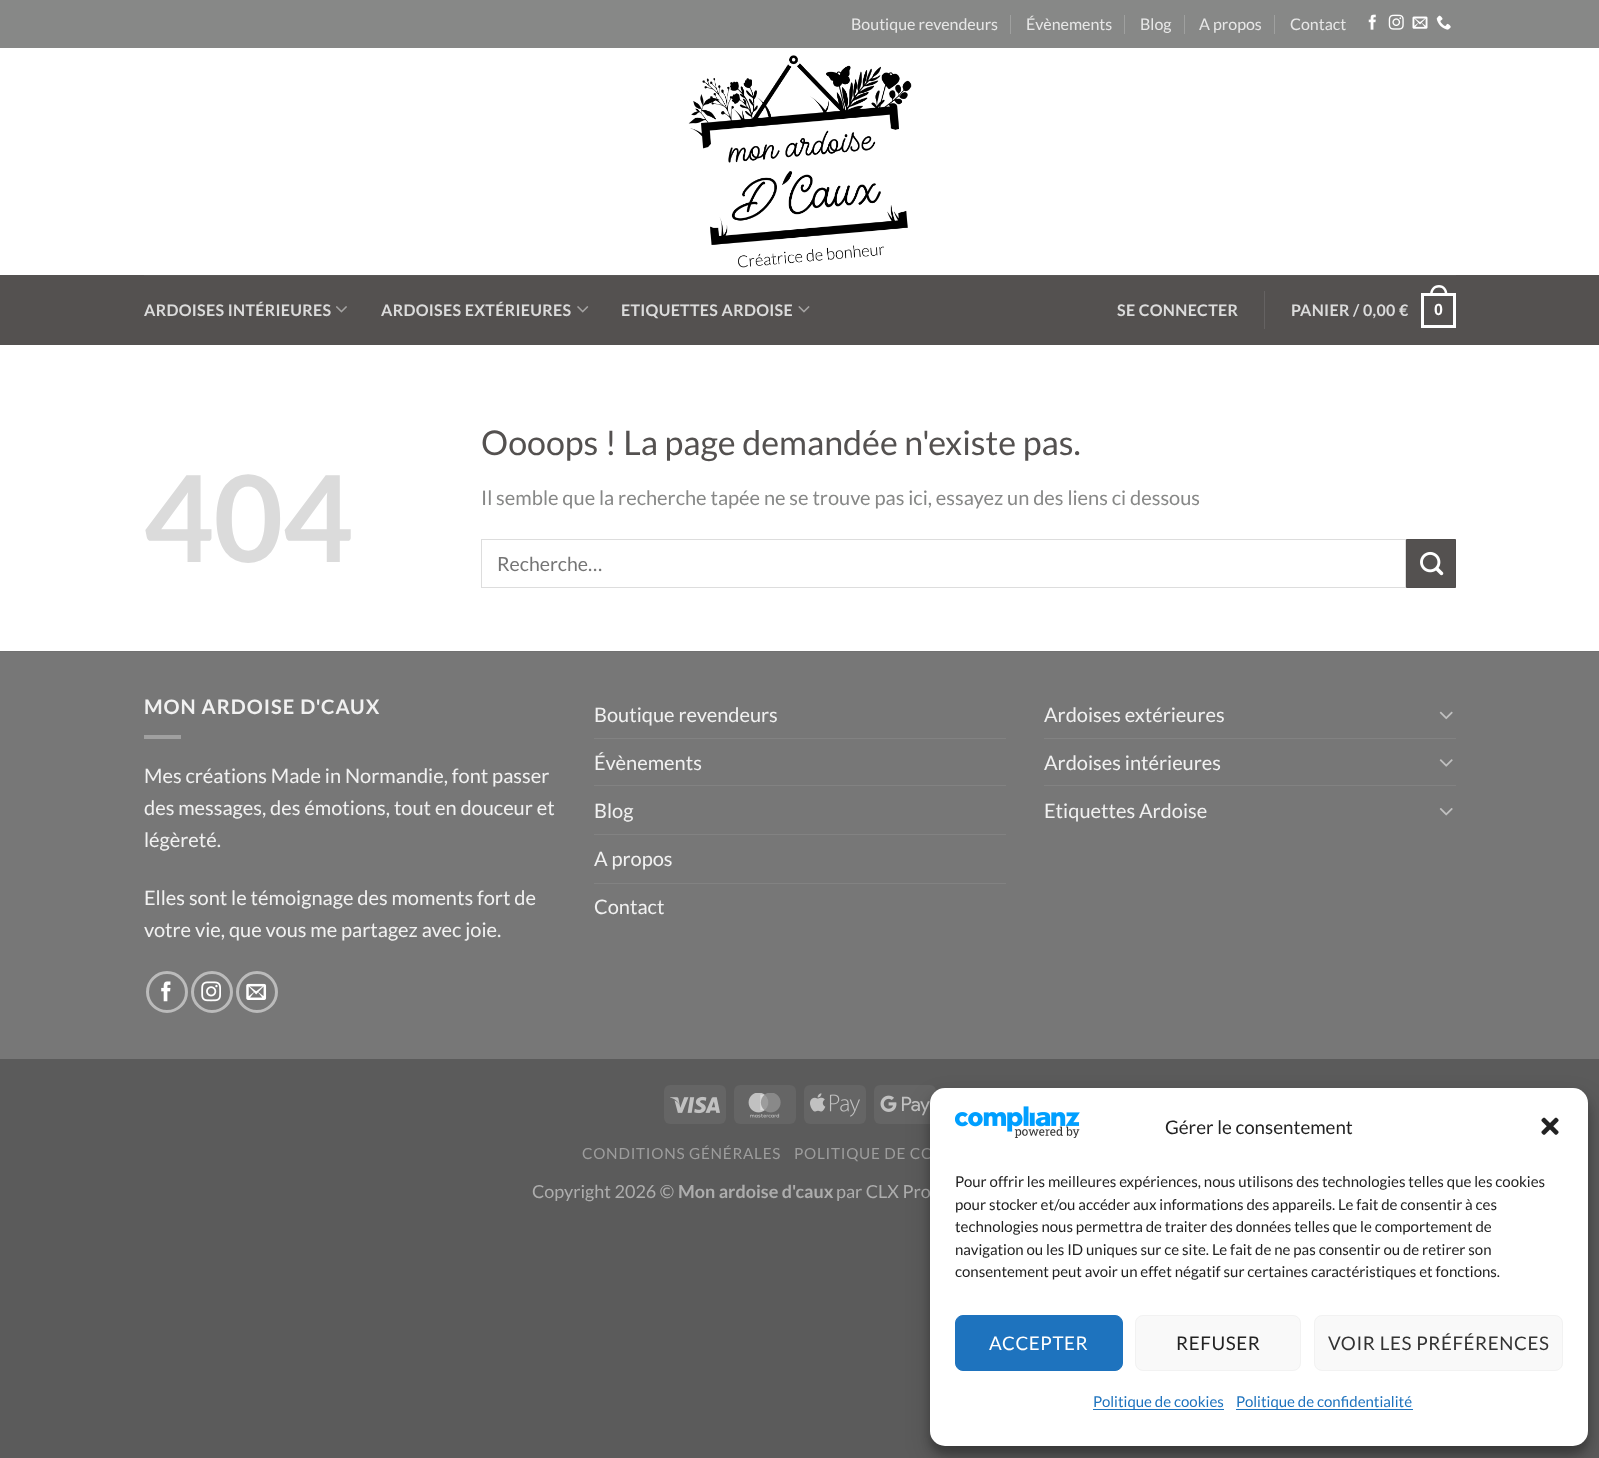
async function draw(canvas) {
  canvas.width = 1599;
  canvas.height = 1458;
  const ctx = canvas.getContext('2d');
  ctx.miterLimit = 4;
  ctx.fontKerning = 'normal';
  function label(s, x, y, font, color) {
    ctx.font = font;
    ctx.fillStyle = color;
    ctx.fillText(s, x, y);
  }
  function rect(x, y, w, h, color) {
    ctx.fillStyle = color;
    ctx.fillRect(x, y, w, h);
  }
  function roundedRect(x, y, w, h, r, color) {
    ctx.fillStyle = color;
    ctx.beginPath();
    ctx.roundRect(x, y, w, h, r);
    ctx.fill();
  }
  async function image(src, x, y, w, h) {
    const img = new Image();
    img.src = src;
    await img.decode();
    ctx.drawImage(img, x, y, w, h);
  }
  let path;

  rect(0, 0, 1599, 1458, '#5b5b5b');
  rect(0, 48, 1599, 603, '#fff');
  rect(0, 0, 1599, 48, '#878887');
  label('Boutique revendeurs', 851, 30, '16px Lato', '#e7e7e7');
  rect(1010, 15, 1, 19, '#9fa09f');
  label('Évènements', 1026, 30, '16px Lato', '#e7e7e7');
  rect(1124, 15, 1, 19, '#9fa09f');
  label('Blog', 1140, 30, '16px Lato', '#e7e7e7');
  rect(1184, 15, 1, 19, '#9fa09f');
  label('A propos', 1199, 30, '16px Lato', '#e7e7e7');
  rect(1274, 15, 1, 19, '#9fa09f');
  label('Contact', 1290, 30, '16px Lato', '#e7e7e7');
  await image('assets/img1.png', 1368, 14, 8, 16);
  await image('assets/img2.png', 1388, 14, 16, 16);
  await image('assets/img3.png', 1412, 16, 16, 13);
  await image('assets/img4.png', 1436, 15, 15, 15);
  await image('assets/img5.png', 688, 55, 224, 213);
  rect(0, 275, 1599, 70, '#545150');
  rect(144, 275, 1312, 1, '#595756');
  ctx.letterSpacing = '0.3px';
  label('ARDOISES INTÉRIEURES', 144, 316, 'bold 16px Lato', '#dbdbdb');
  await image('assets/img6.png', 336, 306, 11, 7);
  label('ARDOISES EXTÉRIEURES', 381, 316, 'bold 16px Lato', '#dbdbdb');
  await image('assets/img7.png', 577, 306, 12, 7);
  label('ETIQUETTES ARDOISE', 621, 316, 'bold 16px Lato', '#dbdbdb');
  await image('assets/img8.png', 798, 306, 12, 7);
  label('SE CONNECTER', 1117, 316, 'bold 16px Lato', '#dbdbdb');
  rect(1264, 291, 1, 38, '#656262');
  label('PANIER / 0,00 €', 1291, 316, 'bold 16px Lato', '#dbdbdb');
  ctx.strokeStyle = '#fff';
  ctx.lineWidth = 3;
  ctx.strokeRect(1422.5, 294.5, 32, 32);
  ctx.fillStyle = '#fff';
  path = new Path2D('M1439 285C1444.5 285 1447.5 289.5 1447.5 295H1430C1430 289.5 1433 285 1439 285ZM1439 287.5C1443 287.5 1445 291 1445 295H1432.5C1432.5 291 1434.5 287.5 1439 287.5Z');
  ctx.fill(path, 'evenodd');
  label('0', 1434, 315, 'bold 16px Liberation Sans', '#fff');
  ctx.letterSpacing = '0px';
  label('404', 144, 562, 'bold 120px Lato', '#dbdbdb');
  label('Oooops ! La page demandée n\'existe pas.', 481, 455, '34px Lato', '#545150');
  label('Il semble que la recherche tapée ne se trouve pas ici, essayez un des liens ci dessous', 481, 505, '20px Lato', '#878887');
  ctx.strokeStyle = '#ddd';
  ctx.lineWidth = 1;
  ctx.strokeRect(481.5, 539.5, 924, 48);
  label('Recherche…', 497, 571, '19.5px Lato', '#757575');
  ctx.fillStyle = '#545150';
  ctx.beginPath();
  ctx.rect(1406.5, 539.5, 49, 48);
  ctx.fill();
  ctx.strokeStyle = '#504d4c';
  ctx.stroke();
  await image('assets/img9.png', 1420, 551, 24, 25);
  rect(0, 652, 1599, 407, '#777');
  rect(0, 651, 1599, 1, '#717171');
  ctx.letterSpacing = '1px';
  label('MON ARDOISE D\'CAUX', 144, 714, 'bold 20px Lato', '#f1f1f1');
  rect(144, 735, 37, 4, '#a0a0a0');
  ctx.letterSpacing = '0px';
  label('Mes créations Made in Normandie, font passer', 144, 783, '20px Lato', '#f1f1f1');
  label('des messages, des émotions, tout en douceur et', 144, 815, '20px Lato', '#f1f1f1');
  label('légèreté.', 144, 847, '20px Lato', '#f1f1f1');
  label('Elles sont le témoignage des moments fort de', 144, 905, '20px Lato', '#f1f1f1');
  label('votre vie, que vous me partagez avec joie.', 144, 937, '20px Lato', '#f1f1f1');
  ctx.beginPath();
  ctx.arc(167, 992, 19.5, 0, 2 * Math.PI);
  ctx.strokeStyle = '#bbb';
  ctx.lineWidth = 3;
  ctx.stroke();
  await image('assets/img10.png', 161, 981, 10, 21);
  ctx.beginPath();
  ctx.arc(212, 992, 19.5, 0, 2 * Math.PI);
  ctx.stroke();
  await image('assets/img11.png', 201, 981, 20, 21);
  ctx.beginPath();
  ctx.arc(257, 992, 19.5, 0, 2 * Math.PI);
  ctx.stroke();
  await image('assets/img12.png', 246, 983, 21, 17);
  label('Boutique revendeurs', 594, 722, '20px Lato', '#f1f1f1');
  rect(594, 738, 412, 1, '#828282');
  label('Évènements', 594, 770, '20px Lato', '#f1f1f1');
  rect(594, 785, 412, 1, '#828282');
  label('Blog', 594, 818, '20px Lato', '#f1f1f1');
  rect(594, 834, 412, 1, '#828282');
  label('A propos', 594, 866, '20px Lato', '#f1f1f1');
  rect(594, 883, 412, 1, '#828282');
  label('Contact', 594, 914, '20px Lato', '#f1f1f1');
  label('Ardoises extérieures', 1044, 722, '20px Lato', '#f1f1f1');
  await image('assets/img13.png', 1439, 711, 14, 9);
  rect(1044, 738, 412, 1, '#828282');
  label('Ardoises intérieures', 1044, 770, '20px Lato', '#f1f1f1');
  await image('assets/img14.png', 1439, 759, 14, 8);
  rect(1044, 785, 412, 1, '#828282');
  label('Etiquettes Ardoise', 1044, 818, '20px Lato', '#f1f1f1');
  await image('assets/img15.png', 1439, 808, 14, 8);
  roundedRect(664, 1085, 62, 39, 6, '#656565');
  await image('assets/img16.png', 670, 1096, 50, 18);
  roundedRect(734, 1085, 62, 39, 6, '#656565');
  await image('assets/img17.png', 748, 1093, 33, 25);
  roundedRect(804, 1085, 62, 39, 6, '#656565');
  await image('assets/img18.png', 810, 1093, 50, 24);
  roundedRect(874, 1085, 62, 39, 6, '#656565');
  await image('assets/img19.png', 880, 1095, 50, 21);
  ctx.letterSpacing = '0.75px';
  label('CONDITIONS GÉNÉRALES', 582, 1159, '15.25px Lato', '#9d9d9d');
  label('POLITIQUE DE CO', 794, 1159, '15.25px Lato', '#9d9d9d');
  ctx.letterSpacing = '0px';
  label('Copyright 2026 ©', 532, 1198, '18px Lato', '#adadad');
  label('Mon ardoise d\'caux', 678, 1198, 'bold 18px Lato', '#adadad');
  label('par CLX Pro', 836, 1198, '18px Lato', '#adadad');
  ctx.fillStyle = '#0000003b';
  ctx.filter = 'blur(4px)';
  ctx.beginPath();
  ctx.roundRect(930, 1095, 658, 359, 15);
  ctx.fill();
  ctx.filter = 'none';
  ctx.fillStyle = '#00000030';
  ctx.filter = 'blur(12.5px)';
  ctx.beginPath();
  ctx.roundRect(930, 1100, 658, 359, 15);
  ctx.fill();
  ctx.filter = 'none';
  roundedRect(930, 1088, 658, 358, 15, '#fff');
  await image('assets/img20.png', 955, 1106, 125, 32);
  label('Gérer le consentement', 1165, 1134, '18.75px Lato', '#222');
  await image('assets/img21.png', 1541, 1117, 18, 18);
  label('Pour offrir les meilleures expériences, nous utilisons des technologies telles que les cookies', 955, 1187, '15px Lato', '#222');
  label('pour stocker et/ou accéder aux informations des appareils. Le fait de consentir à ces', 955, 1210, '15px Lato', '#222');
  label('technologies nous permettra de traiter des données telles que le comportement de', 955, 1232, '15px Lato', '#222');
  label('navigation ou les ID uniques sur ce site. Le fait de ne pas consentir ou de retirer son', 955, 1255, '15px Lato', '#222');
  label('consentement peut avoir un effet négatif sur certaines caractéristiques et fonctions.', 955, 1277, '15px Lato', '#222');
  ctx.fillStyle = '#1e73be';
  ctx.beginPath();
  ctx.roundRect(955.5, 1315.5, 167, 55, 7.5);
  ctx.fill();
  ctx.strokeStyle = '#1e73be';
  ctx.lineWidth = 1;
  ctx.stroke();
  ctx.letterSpacing = '0.6px';
  label('ACCEPTER', 989, 1350, '18.75px Lato', '#fff');
  ctx.fillStyle = '#f9f9f9';
  ctx.beginPath();
  ctx.roundRect(1135.5, 1315.5, 165, 55, 7.5);
  ctx.fill();
  ctx.strokeStyle = '#f2f2f2';
  ctx.stroke();
  label('REFUSER', 1176, 1350, '18.75px Lato', '#222');
  ctx.fillStyle = '#f9f9f9';
  ctx.beginPath();
  ctx.roundRect(1314.5, 1315.5, 248, 55, 7.5);
  ctx.fill();
  ctx.stroke();
  label('VOIR LES PRÉFÉRENCES', 1328, 1350, '18.75px Lato', '#333');
  rect(1093, 1409, 131, 1, '#1e73be');
  ctx.letterSpacing = '0px';
  label('Politique de cookies', 1093, 1407, '15px Lato', '#1e73be');
  rect(1236, 1409, 177, 1, '#1e73be');
  label('Politique de confidentialité', 1236, 1407, '15px Lato', '#1e73be');
}

draw(document.querySelector('canvas'));
